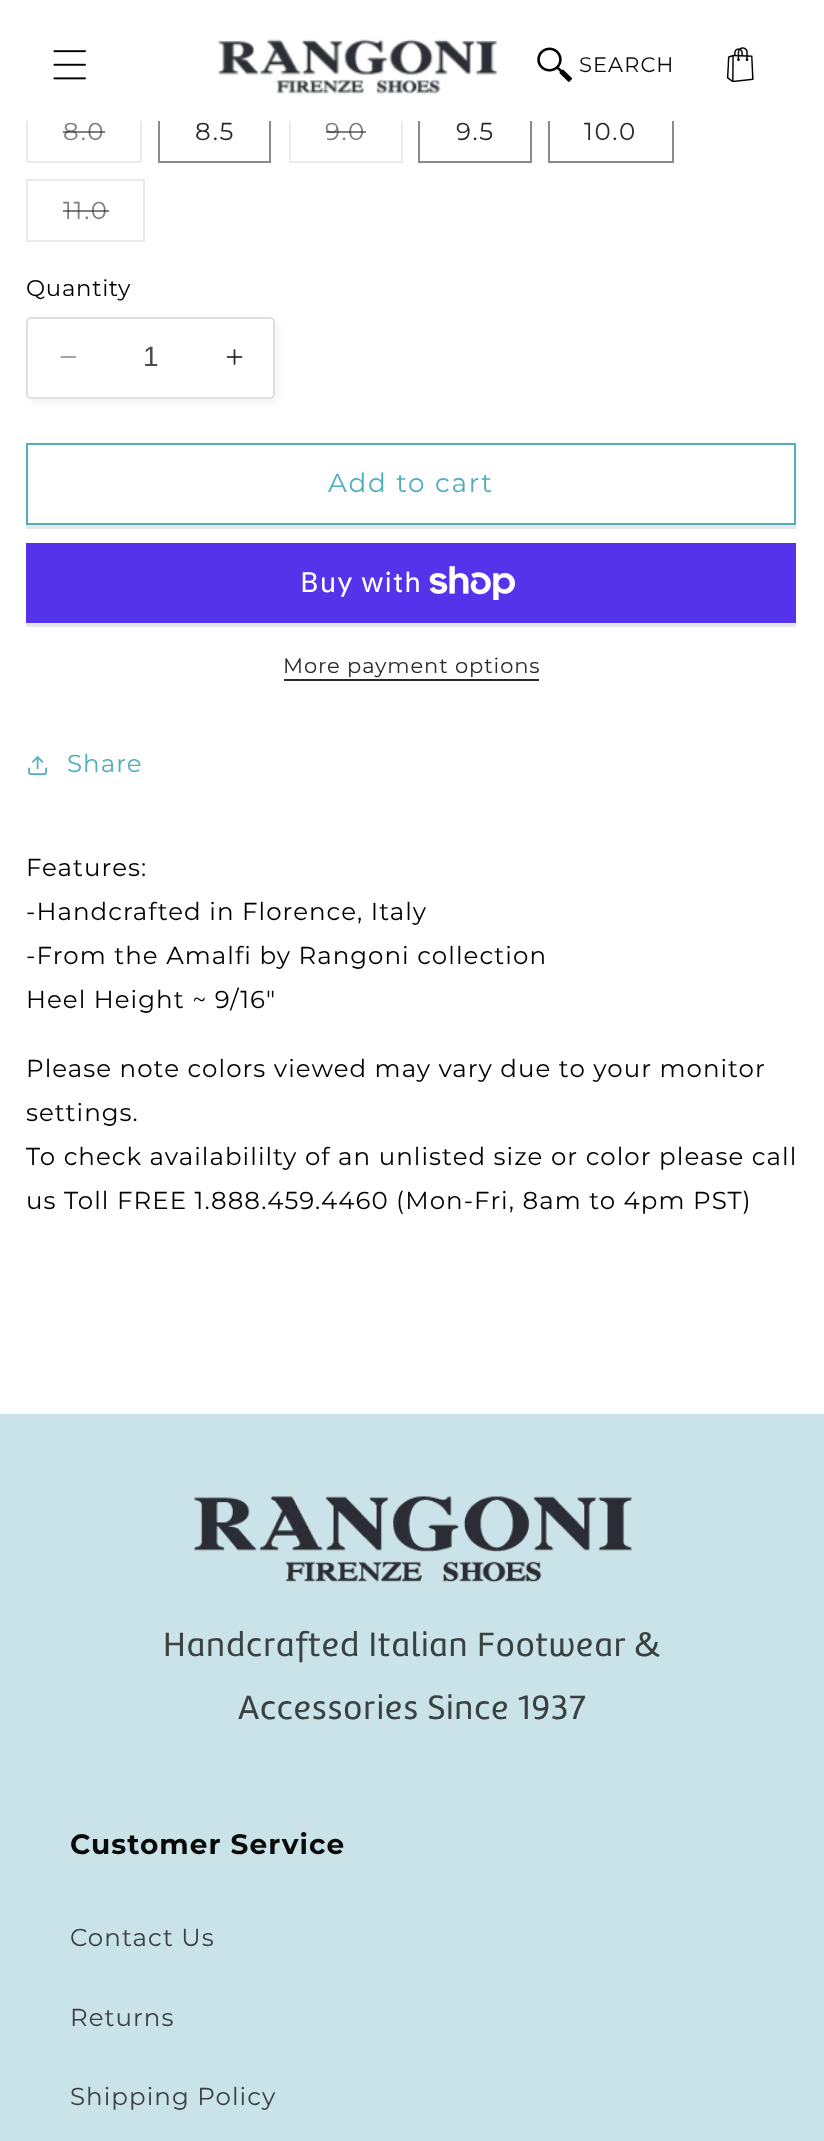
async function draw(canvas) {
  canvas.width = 824;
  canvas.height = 2141;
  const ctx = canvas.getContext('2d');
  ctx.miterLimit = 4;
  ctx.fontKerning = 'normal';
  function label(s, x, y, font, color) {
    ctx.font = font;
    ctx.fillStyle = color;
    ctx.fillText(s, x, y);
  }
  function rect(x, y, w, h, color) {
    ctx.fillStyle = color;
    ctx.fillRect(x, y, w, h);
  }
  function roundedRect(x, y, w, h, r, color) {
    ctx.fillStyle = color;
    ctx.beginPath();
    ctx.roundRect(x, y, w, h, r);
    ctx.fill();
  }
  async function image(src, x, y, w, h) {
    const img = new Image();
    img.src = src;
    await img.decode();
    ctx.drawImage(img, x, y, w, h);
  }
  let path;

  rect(0, 0, 824, 2141, '#fff');
  ctx.strokeStyle = '#eaeaea';
  ctx.lineWidth = 2;
  ctx.strokeRect(27, 101, 114, 61);
  ctx.strokeStyle = '#898a8a';
  ctx.strokeRect(159, 101, 111, 61);
  ctx.strokeStyle = '#eaeaea';
  ctx.strokeRect(290, 101, 112, 61);
  ctx.strokeStyle = '#898a8a';
  ctx.strokeRect(419, 101, 112, 61);
  ctx.strokeRect(549, 101, 124, 61);
  rect(26, 100, 648, 21, '#fff');
  await image('assets/img1.png', 53, 50, 33, 30);
  await image('assets/img2.png', 218, 39, 279, 55);
  await image('assets/img3.png', 537, 47, 35, 35);
  ctx.letterSpacing = '1.05px';
  label('SEARCH', 579, 72, '21px Montserrat', '#0a0b09');
  await image('assets/img4.png', 726, 47, 28, 35);
  ctx.letterSpacing = '1.75px';
  label('8.0', 63, 140, '24.5px Montserrat', '#7f8080');
  rect(63, 131, 42, 2, '#292b2b99');
  label('8.5', 195, 140, '24.5px Montserrat', '#292b2b');
  label('9.0', 325, 140, '24.5px Montserrat', '#7f8080');
  rect(326, 131, 40, 2, '#292b2b99');
  label('9.5', 456, 140, '24.5px Montserrat', '#292b2b');
  label('10.0', 584, 140, '24.5px Montserrat', '#292b2b');
  ctx.strokeStyle = '#eaeaea';
  ctx.strokeRect(27, 180, 117, 61);
  label('11.0', 63, 219, '24.5px Montserrat', '#7f8080');
  rect(63, 210, 46, 2, '#292b2b99');
  ctx.letterSpacing = '0.75px';
  label('Quantity', 26, 296, '22.75px Montserrat', '#000');
  ctx.fillStyle = '#0000000d';
  ctx.filter = 'blur(4.5px)';
  ctx.beginPath();
  ctx.roundRect(30, 320, 248, 83, 5);
  ctx.fill();
  ctx.filter = 'none';
  roundedRect(26, 317, 249, 82, 5, '#fff');
  await image('assets/img5.png', 60, 356, 16, 2);
  await image('assets/img6.png', 226, 349, 17, 16);
  ctx.beginPath();
  ctx.roundRect(27, 318, 247, 80, 4);
  ctx.strokeStyle = '#292b2b26';
  ctx.stroke();
  ctx.letterSpacing = '0px';
  label('1', 143, 366, '28px Liberation Sans', '#494b4b');
  ctx.strokeStyle = '#4eaebd';
  ctx.strokeRect(27, 444, 768, 80);
  ctx.letterSpacing = '1.75px';
  label('Add to cart', 328, 492, '26.25px Montserrat', '#4eaebd');
  ctx.fillStyle = '#e6e6e6';
  path = new Path2D('M26 446V529H796V525H26Z');
  ctx.fill(path);
  path = new Path2D('M26 546V627H796V623H26Z');
  ctx.fill(path);
  rect(26, 543, 770, 80, '#5433eb');
  ctx.letterSpacing = '1.05px';
  label('Buy with', 300, 592, '28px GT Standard', '#fff');
  await image('assets/img7.png', 429, 566, 86, 34);
  ctx.letterSpacing = '0.9px';
  label('More payment options', 283, 673, '21px Montserrat', '#292b2b');
  rect(284, 679, 255, 2, '#292b2b');
  await image('assets/img8.png', 28, 756, 20, 19);
  ctx.letterSpacing = '1.05px';
  label('Share', 67, 772, '24.5px Montserrat', '#4eaebd');
  label('Features:', 26, 876, '24.5px Montserrat', '#000');
  label('-Handcrafted in Florence, Italy', 26, 920, '24.5px Montserrat', '#000');
  label('-From the Amalfi by Rangoni collection', 26, 964, '24.5px Montserrat', '#000');
  label('Heel Height ~ 9/16"', 26, 1008, '24.5px Montserrat', '#000');
  label('Please note colors viewed may vary due to your monitor', 26, 1077, '24.5px Montserrat', '#000');
  label('settings.', 26, 1121, '24.5px Montserrat', '#000');
  label('To check availabililty of an unlisted size or color please call', 26, 1165, '24.5px Montserrat', '#000');
  label('us Toll FREE 1.888.459.4460 (Mon-Fri, 8am to 4pm PST)', 26, 1209, '24.5px Montserrat', '#000');
  rect(0, 1414, 824, 727, '#cae3e8');
  await image('assets/img9.png', 194, 1496, 438, 87);
  label('Handcrafted Italian Footwear &', 163, 1656, '35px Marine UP', '#3a4141');
  label('Accessories Since 1937', 238, 1719, '35px Marine UP', '#3a4141');
  label('Customer Service', 70, 1854, 'bold 28px Montserrat', '#0a0b09');
  label('Contact Us', 70, 1946, '24.5px Montserrat', '#3a4141');
  label('Returns', 70, 2026, '24.5px Montserrat', '#3a4141');
  label('Shipping Policy', 70, 2105, '24.5px Montserrat', '#3a4141');
}

draw(document.querySelector('canvas'));
